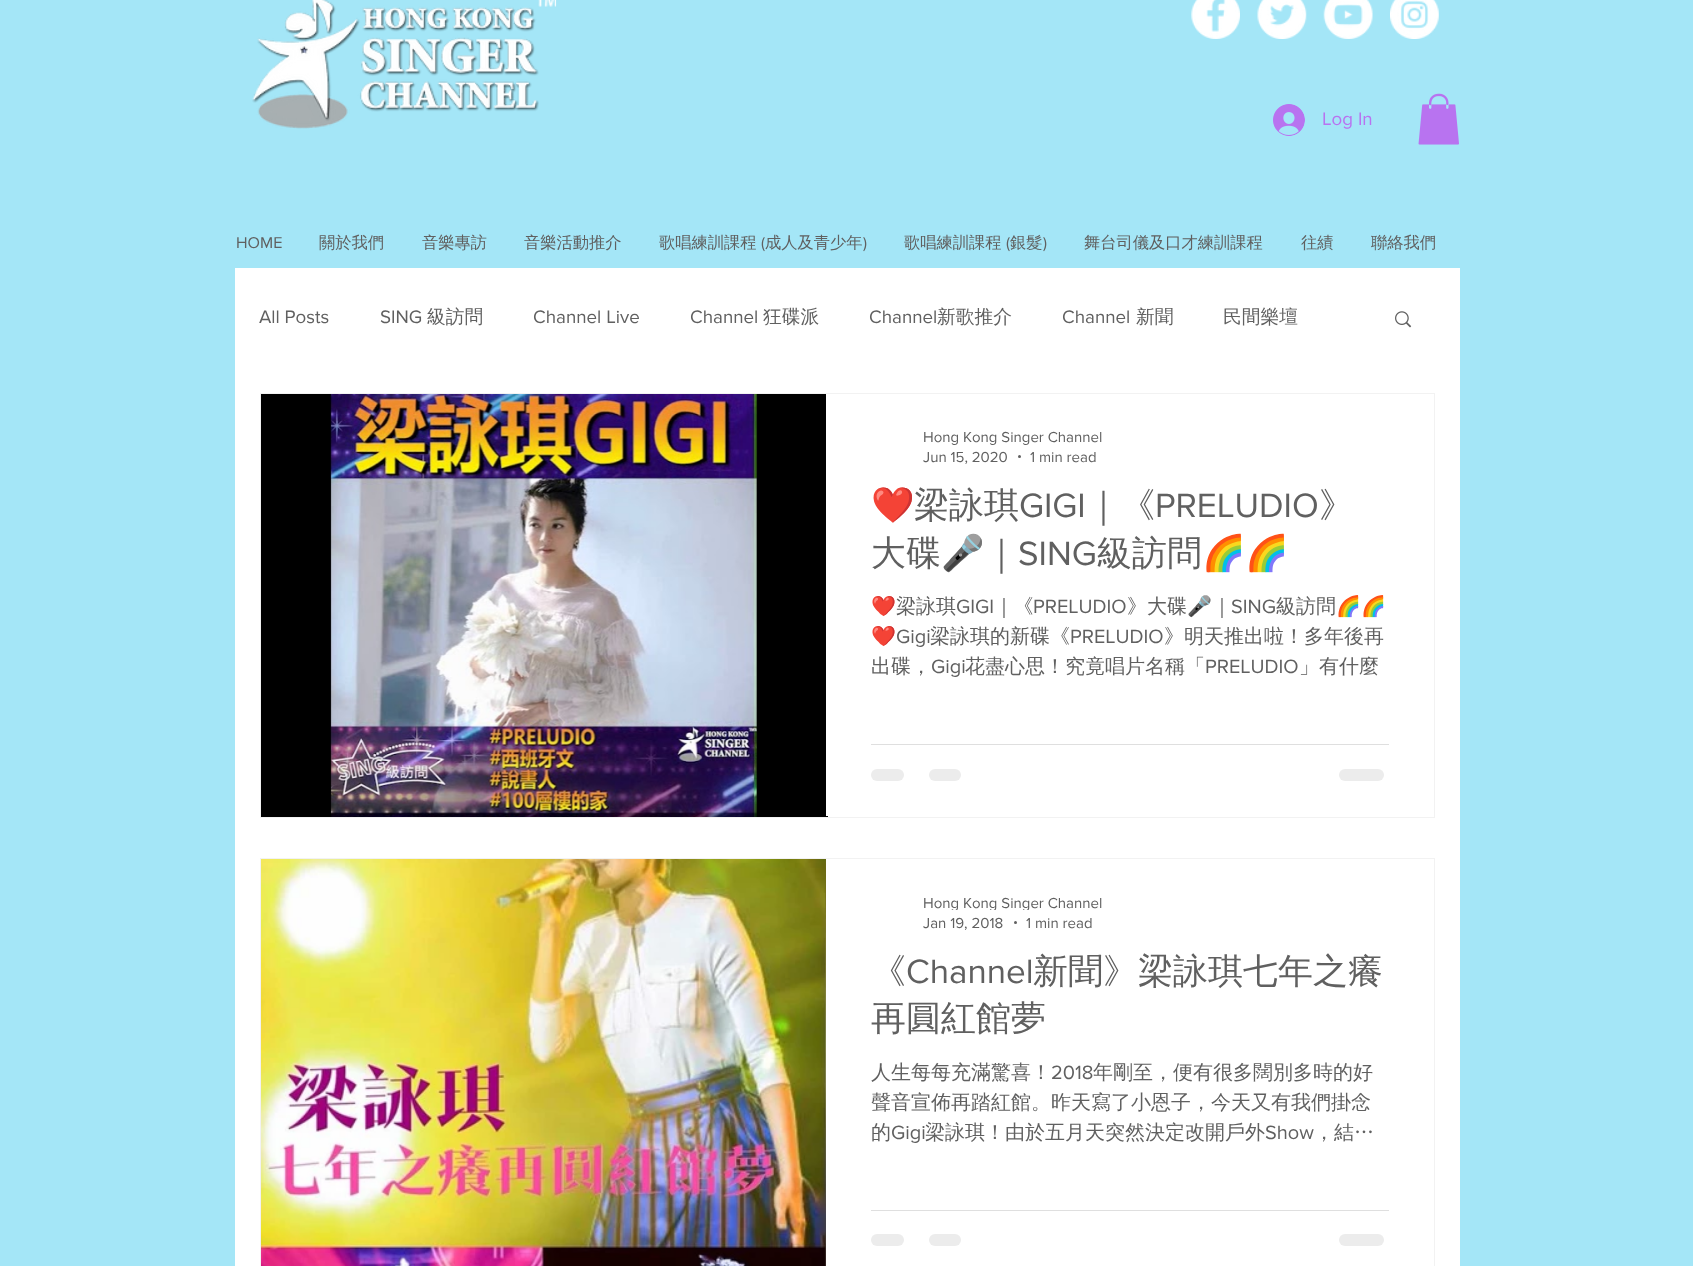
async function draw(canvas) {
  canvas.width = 1693;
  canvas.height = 1266;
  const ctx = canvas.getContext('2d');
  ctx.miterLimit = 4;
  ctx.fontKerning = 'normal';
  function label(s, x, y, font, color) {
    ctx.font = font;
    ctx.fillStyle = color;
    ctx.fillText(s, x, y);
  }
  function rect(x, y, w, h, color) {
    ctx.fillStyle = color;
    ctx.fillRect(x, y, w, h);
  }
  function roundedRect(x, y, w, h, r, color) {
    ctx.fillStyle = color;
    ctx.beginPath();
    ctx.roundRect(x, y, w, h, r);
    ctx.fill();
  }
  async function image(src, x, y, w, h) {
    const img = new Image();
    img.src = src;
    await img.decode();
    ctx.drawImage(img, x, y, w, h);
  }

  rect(0, 0, 1693, 1266, '#a4e6f7');
  await image('assets/img1.png', 252, 0, 305, 129);
  await image('assets/img2.png', 1191, 0, 49, 39);
  await image('assets/img3.png', 1257, 0, 50, 39);
  await image('assets/img4.png', 1323, 0, 50, 39);
  await image('assets/img5.png', 1390, 0, 49, 39);
  await image('assets/img6.png', 1273, 104, 32, 32);
  label('Log In', 1322, 125, '18.75px "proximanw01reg"', '#b873f0');
  await image('assets/img7.png', 1418, 93, 41, 52);
  label('HOME', 236, 248, '16.25px "proximanw01reg"', '#606060');
  label('關於我們', 319, 248, '500 16.25px WenQuanYi Zen Hei', '#606060');
  label('音樂專訪', 422, 248, '500 16.25px WenQuanYi Zen Hei', '#606060');
  label('音樂活動推介', 524, 248, '500 16.25px WenQuanYi Zen Hei', '#606060');
  label('歌唱練訓課程', 659, 248, '500 16.25px WenQuanYi Zen Hei', '#606060');
  label('(', 761, 248, '16.25px "proximanw01reg"', '#606060');
  label('成人及青少年', 765, 248, '500 16.25px WenQuanYi Zen Hei', '#606060');
  label(')', 863, 248, '16.25px "proximanw01reg"', '#606060');
  label('歌唱練訓課程', 904, 248, '500 16.25px WenQuanYi Zen Hei', '#606060');
  label('(', 1006, 248, '16.25px "proximanw01reg"', '#606060');
  label('銀髮', 1010, 248, '500 16.25px WenQuanYi Zen Hei', '#606060');
  label(')', 1043, 248, '16.25px "proximanw01reg"', '#606060');
  label('舞台司儀及口才練訓課程', 1084, 248, '500 16.25px WenQuanYi Zen Hei', '#606060');
  label('往績', 1301, 248, '500 16.25px WenQuanYi Zen Hei', '#606060');
  label('聯絡我們', 1371, 248, '500 16.25px WenQuanYi Zen Hei', '#606060');
  rect(235, 268, 1225, 998, '#fff');
  label('All Posts', 259, 323, '18.75px "proximanw01reg"', '#606060');
  label('SING', 380, 323, '18.75px "proximanw01reg"', '#606060');
  label('級訪問', 427, 323, '500 18.75px WenQuanYi Zen Hei', '#606060');
  label('Channel Live', 533, 323, '18.75px "proximanw01reg"', '#606060');
  label('Channel', 690, 323, '18.75px "proximanw01reg"', '#606060');
  label('狂碟派', 763, 323, '500 18.75px WenQuanYi Zen Hei', '#606060');
  label('Channel', 869, 323, '18.75px "proximanw01reg"', '#606060');
  label('新歌推介', 937, 323, '500 18.75px WenQuanYi Zen Hei', '#606060');
  label('Channel', 1062, 323, '18.75px "proximanw01reg"', '#606060');
  label('新聞', 1136, 323, '500 18.75px WenQuanYi Zen Hei', '#606060');
  label('民間樂壇', 1223, 323, '500 18.75px WenQuanYi Zen Hei', '#606060');
  await image('assets/img8.png', 1395, 311, 17, 17);
  ctx.strokeStyle = '#f2f2f2';
  ctx.strokeRect(260.5, 393.5, 1174, 424);
  await image('assets/img9.png', 261, 394, 566, 423);
  rect(827, 816, 1, 1, '#010101');
  rect(826, 394, 1, 422, '#fff');
  label('Hong Kong Singer Channel', 923, 442, '15px "proximanw01reg"', '#606060');
  label('Jun 15, 2020', 923, 462, '15px "proximanw01reg"', '#606060');
  ctx.beginPath();
  ctx.arc(1019.5, 456.5, 1.5, 0, 2 * Math.PI);
  ctx.fill();
  label('1 min read', 1030, 462, '15px "proximanw01reg"', '#606060');
  ctx.save();
  ctx.beginPath();
  ctx.rect(871, 483, 518, 95);
  ctx.clip();
  label('❤️', 871, 517, '35px Noto Color Emoji', '#606060');
  ctx.restore();
  label('梁詠琪', 914, 517, '500 35px WenQuanYi Zen Hei', '#606060');
  label('GIGI', 1019, 517, '35px "proximanw01reg"', '#606060');
  label('｜《', 1086, 517, '500 35px WenQuanYi Zen Hei', '#606060');
  label('PRELUDIO', 1155, 517, '35px "proximanw01reg"', '#606060');
  label('》', 1319, 517, '500 35px WenQuanYi Zen Hei', '#606060');
  label('大碟', 871, 565, '500 35px WenQuanYi Zen Hei', '#606060');
  label('🎤', 941, 565, '35px Noto Color Emoji', '#606060');
  label('｜', 984, 565, '500 35px WenQuanYi Zen Hei', '#606060');
  label('SING', 1018, 565, '35px "proximanw01reg"', '#606060');
  label('級訪問', 1097, 565, '500 35px WenQuanYi Zen Hei', '#606060');
  label('🌈🌈', 1202, 565, '35px Noto Color Emoji', '#606060');
  ctx.save();
  ctx.beginPath();
  ctx.rect(871, 593, 518, 90);
  ctx.clip();
  label('❤️', 871, 613, '20px Noto Color Emoji', '#606060');
  ctx.restore();
  label('梁詠琪', 896, 613, '500 20px WenQuanYi Zen Hei', '#606060');
  label('GIGI', 956, 613, '20px "proximanw01reg"', '#606060');
  label('｜《', 994, 613, '500 20px WenQuanYi Zen Hei', '#606060');
  label('PRELUDIO', 1033, 613, '20px "proximanw01reg"', '#606060');
  label('》大碟', 1127, 613, '500 20px WenQuanYi Zen Hei', '#606060');
  label('🎤', 1187, 613, '20px Noto Color Emoji', '#606060');
  label('｜', 1212, 613, '500 20px WenQuanYi Zen Hei', '#606060');
  label('SING', 1231, 613, '20px "proximanw01reg"', '#606060');
  label('級訪問', 1276, 613, '500 20px WenQuanYi Zen Hei', '#606060');
  label('🌈🌈', 1336, 613, '20px Noto Color Emoji', '#606060');
  ctx.save();
  ctx.beginPath();
  ctx.rect(871, 593, 518, 90);
  ctx.clip();
  label('❤️', 871, 643, '20px Noto Color Emoji', '#606060');
  ctx.restore();
  label('Gigi', 896, 643, '20px "proximanw01reg"', '#606060');
  label('梁詠琪的新碟《', 930, 643, '500 20px WenQuanYi Zen Hei', '#606060');
  label('PRELUDIO', 1070, 643, '20px "proximanw01reg"', '#606060');
  label('》明天推出啦！多年後再', 1164, 643, '500 20px WenQuanYi Zen Hei', '#606060');
  label('出碟，', 871, 673, '500 20px WenQuanYi Zen Hei', '#606060');
  label('Gigi', 931, 673, '20px "proximanw01reg"', '#606060');
  label('花盡心思！究竟唱片名稱「', 965, 673, '500 20px WenQuanYi Zen Hei', '#606060');
  label('PRELUDIO', 1205, 673, '20px "proximanw01reg"', '#606060');
  label('」有什麼', 1299, 673, '500 20px WenQuanYi Zen Hei', '#606060');
  rect(871, 744, 518, 1, '#dfdfdf');
  roundedRect(871, 769, 33, 12, 6, '#ececec');
  roundedRect(929, 769, 32, 12, 6, '#ececec');
  roundedRect(1339, 769, 45, 12, 6, '#ececec');
  ctx.strokeRect(260.5, 858.5, 1174, 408);
  await image('assets/img10.png', 261, 859, 565, 407);
  ctx.save();
  ctx.beginPath();
  ctx.rect(924, 894, 179, 16);
  ctx.clip();
  label('Hong Kong Singer Channel', 923, 908, '15px "proximanw01reg"', '#606060');
  ctx.restore();
  label('Jan 19, 2018', 923, 928, '15px "proximanw01reg"', '#606060');
  ctx.beginPath();
  ctx.arc(1015.5, 922.5, 1.5, 0, 2 * Math.PI);
  ctx.fill();
  label('1 min read', 1026, 928, '15px "proximanw01reg"', '#606060');
  label('《', 871, 983, '500 35px WenQuanYi Zen Hei', '#606060');
  label('Channel', 906, 983, '35px "proximanw01reg"', '#606060');
  label('新聞》梁詠琪七年之癢', 1033, 983, '500 35px WenQuanYi Zen Hei', '#606060');
  label('再圓紅館夢', 871, 1030, '500 35px WenQuanYi Zen Hei', '#606060');
  label('人生每每充滿驚喜！', 871, 1079, '500 20px WenQuanYi Zen Hei', '#606060');
  label('2018', 1051, 1079, '20px "proximanw01reg"', '#606060');
  label('年剛至，便有很多闊別多時的好', 1093, 1079, '500 20px WenQuanYi Zen Hei', '#606060');
  label('聲音宣佈再踏紅館。昨天寫了小恩子，今天又有我們掛念', 871, 1109, '500 20px WenQuanYi Zen Hei', '#606060');
  label('的', 871, 1139, '500 20px WenQuanYi Zen Hei', '#606060');
  label('Gigi', 891, 1139, '20px "proximanw01reg"', '#606060');
  label('梁詠琪！由於五月天突然決定改開戶外', 925, 1139, '500 20px WenQuanYi Zen Hei', '#606060');
  label('Show', 1265, 1139, '20px "proximanw01reg"', '#606060');
  label('，結…', 1314, 1139, '500 20px WenQuanYi Zen Hei', '#606060');
  rect(871, 1210, 518, 1, '#dfdfdf');
  roundedRect(871, 1234, 33, 12, 6, '#ececec');
  roundedRect(929, 1234, 32, 12, 6, '#ececec');
  roundedRect(1339, 1234, 45, 12, 6, '#ececec');
}

draw(document.querySelector('canvas'));
